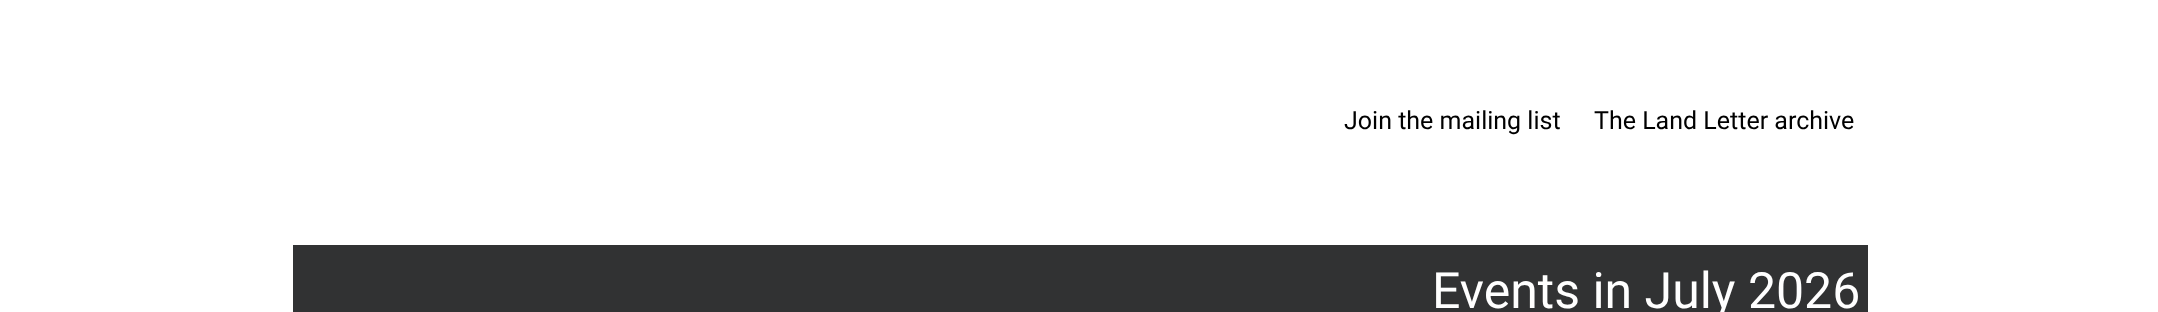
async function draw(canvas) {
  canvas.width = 2158;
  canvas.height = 312;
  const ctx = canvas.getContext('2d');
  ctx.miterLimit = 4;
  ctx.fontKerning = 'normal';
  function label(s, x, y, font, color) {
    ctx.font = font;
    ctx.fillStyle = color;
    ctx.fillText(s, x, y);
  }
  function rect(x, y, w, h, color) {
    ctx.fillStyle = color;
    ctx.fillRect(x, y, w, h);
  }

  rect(0, 0, 2158, 312, '#fff');
  label('Join the mailing list', 1344, 129, '25px Roboto', '#000');
  label('The Land Letter archive', 1594, 129, '25px Roboto', '#000');
  rect(293, 245, 1575, 67, '#313233');
  label('Events in July 2026', 1432, 308, '50px Roboto', '#fff');
}

draw(document.querySelector('canvas'));
